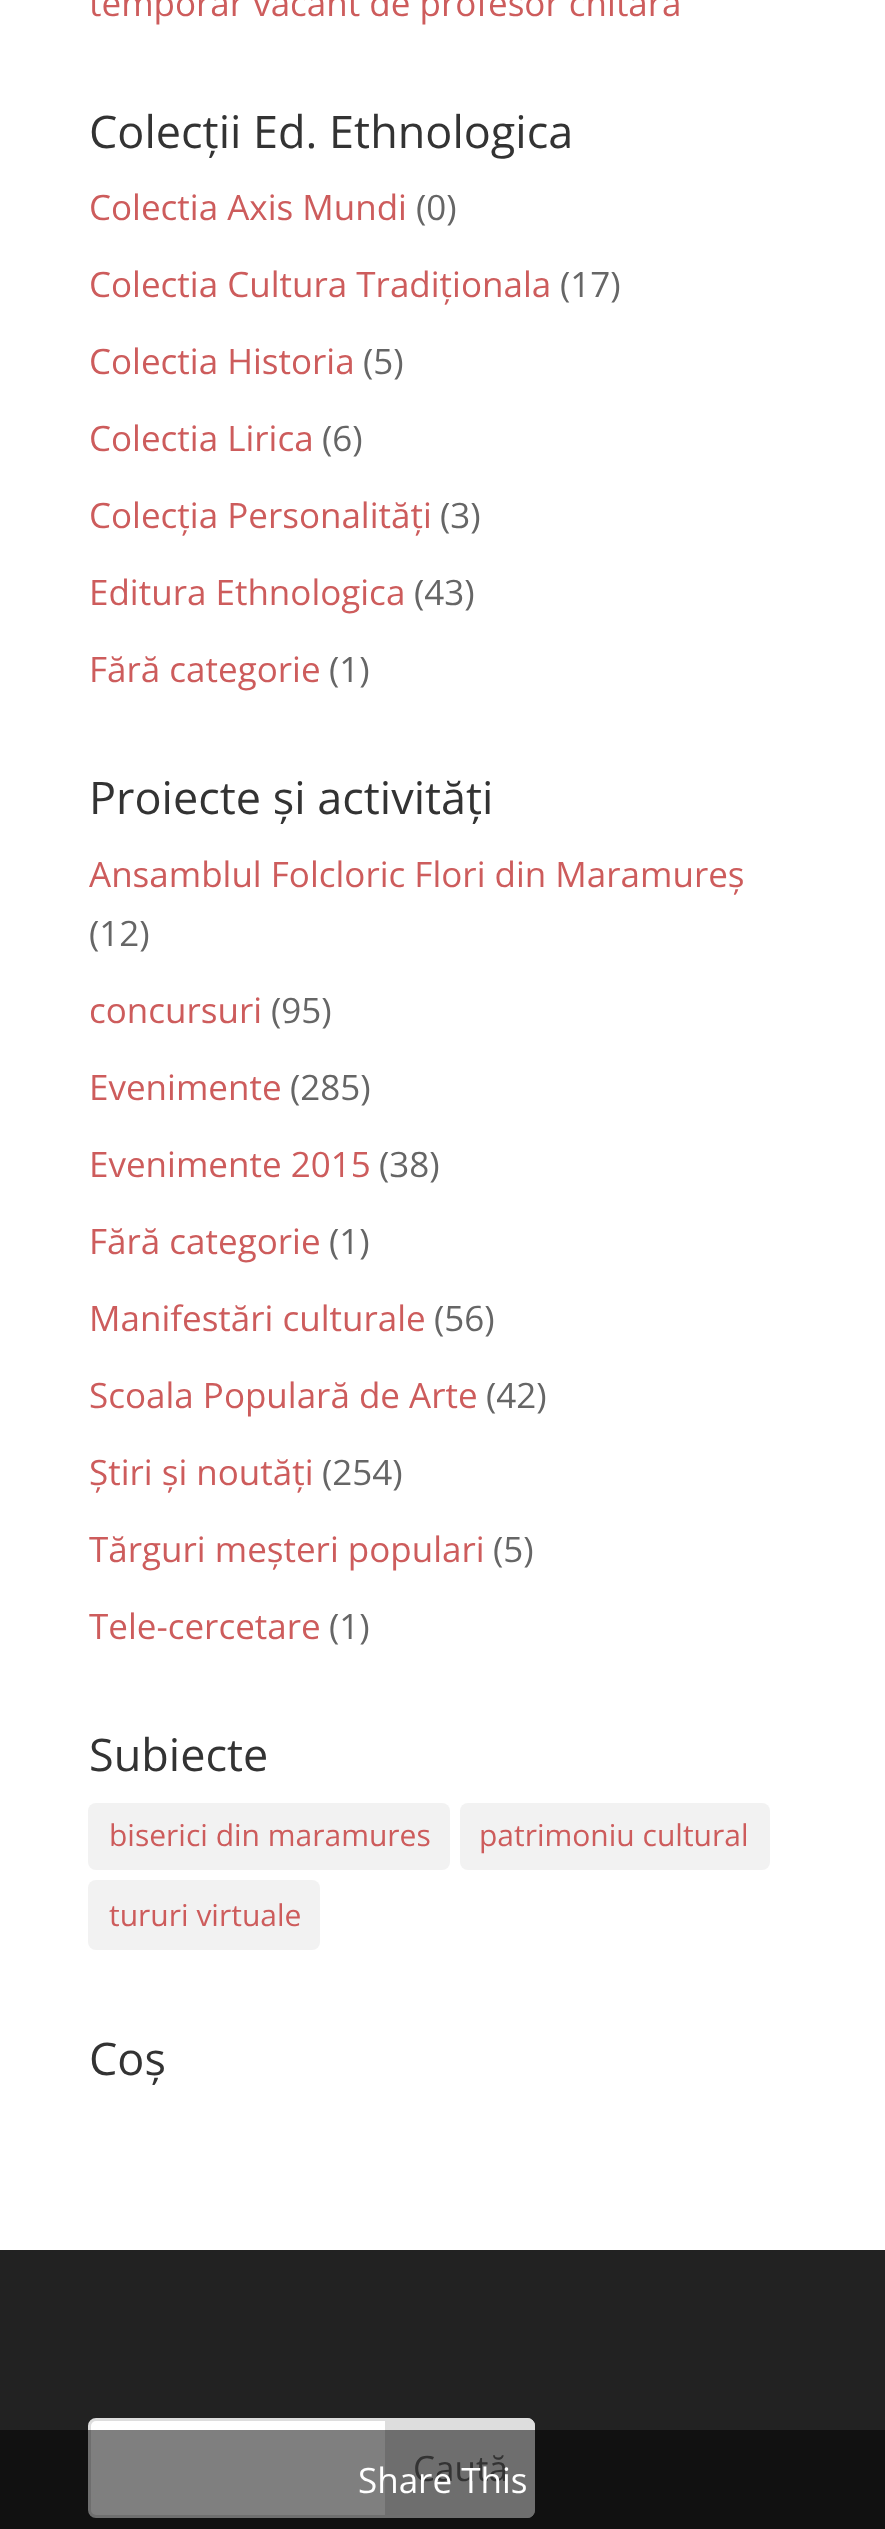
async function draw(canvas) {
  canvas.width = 885;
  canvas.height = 2529;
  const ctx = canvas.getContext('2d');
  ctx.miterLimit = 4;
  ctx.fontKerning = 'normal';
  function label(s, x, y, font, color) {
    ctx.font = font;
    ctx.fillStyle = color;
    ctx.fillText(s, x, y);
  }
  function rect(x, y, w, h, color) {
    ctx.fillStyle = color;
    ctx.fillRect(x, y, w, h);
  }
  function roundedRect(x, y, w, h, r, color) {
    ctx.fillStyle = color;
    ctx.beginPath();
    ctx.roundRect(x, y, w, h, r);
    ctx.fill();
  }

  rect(0, 0, 885, 2529, '#fff');
  label('temporar vacant de profesor chitară', 89, 16, '35px Open Sans', '#cd5c5c');
  label('Colecții Ed. Ethnologica', 89, 148, '45px Open Sans', '#333');
  label('Colectia Axis Mundi', 89, 220, '35px Open Sans', '#cd5c5c');
  label('(0)', 416, 220, '35px Open Sans', '#666');
  label('Colectia Cultura Tradiționala', 89, 297, '35px Open Sans', '#cd5c5c');
  label('(17)', 560, 297, '35px Open Sans', '#666');
  label('Colectia Historia', 89, 374, '35px Open Sans', '#cd5c5c');
  label('(5)', 363, 374, '35px Open Sans', '#666');
  label('Colectia Lirica', 89, 451, '35px Open Sans', '#cd5c5c');
  label('(6)', 322, 451, '35px Open Sans', '#666');
  label('Colecția Personalități', 89, 528, '35px Open Sans', '#cd5c5c');
  label('(3)', 440, 528, '35px Open Sans', '#666');
  label('Editura Ethnologica', 89, 605, '35px Open Sans', '#cd5c5c');
  label('(43)', 414, 605, '35px Open Sans', '#666');
  label('Fără categorie', 89, 682, '35px Open Sans', '#cd5c5c');
  label('(1)', 329, 682, '35px Open Sans', '#666');
  label('Proiecte și activități', 89, 814, '45px Open Sans', '#333');
  label('Ansamblul Folcloric Flori din Maramureș', 89, 887, '35px Open Sans', '#cd5c5c');
  label('(12)', 89, 946, '35px Open Sans', '#666');
  label('concursuri', 89, 1023, '35px Open Sans', '#cd5c5c');
  label('(95)', 271, 1023, '35px Open Sans', '#666');
  label('Evenimente', 89, 1100, '35px Open Sans', '#cd5c5c');
  label('(285)', 290, 1100, '35px Open Sans', '#666');
  label('Evenimente 2015', 89, 1177, '35px Open Sans', '#cd5c5c');
  label('(38)', 379, 1177, '35px Open Sans', '#666');
  label('Fără categorie', 89, 1254, '35px Open Sans', '#cd5c5c');
  label('(1)', 329, 1254, '35px Open Sans', '#666');
  label('Manifestări culturale', 89, 1331, '35px Open Sans', '#cd5c5c');
  label('(56)', 434, 1331, '35px Open Sans', '#666');
  label('Scoala Populară de Arte', 89, 1408, '35px Open Sans', '#cd5c5c');
  label('(42)', 486, 1408, '35px Open Sans', '#666');
  label('Știri și noutăți', 89, 1485, '35px Open Sans', '#cd5c5c');
  label('(254)', 322, 1485, '35px Open Sans', '#666');
  label('Tărguri meșteri populari', 89, 1562, '35px Open Sans', '#cd5c5c');
  label('(5)', 493, 1562, '35px Open Sans', '#666');
  label('Tele-cercetare', 89, 1639, '35px Open Sans', '#cd5c5c');
  label('(1)', 329, 1639, '35px Open Sans', '#666');
  label('Subiecte', 89, 1771, '45px Open Sans', '#333');
  roundedRect(88, 1803, 362, 67, 8, '#f2f2f2');
  label('biserici din maramures', 109, 1846, '30px Open Sans', '#cd5c5c');
  roundedRect(460, 1803, 310, 67, 8, '#f2f2f2');
  label('patrimoniu cultural', 479, 1846, '30px Open Sans', '#cd5c5c');
  roundedRect(88, 1880, 232, 70, 8, '#f2f2f2');
  label('tururi virtuale', 109, 1926, '30px Open Sans', '#cd5c5c');
  label('Coș', 89, 2075, '45px Open Sans', '#333');
  rect(0, 2250, 885, 279, '#222');
  ctx.fillStyle = '#fff';
  ctx.beginPath();
  ctx.roundRect(89.5, 2419.5, 444, 97, 6.5);
  ctx.fill();
  ctx.strokeStyle = '#ddd';
  ctx.lineWidth = 3;
  ctx.stroke();
  ctx.fillStyle = '#ddd';
  ctx.beginPath();
  ctx.roundRect(386.5, 2419.5, 147, 97, [0, 6.5, 6.5, 0]);
  ctx.fill();
  ctx.stroke();
  label('Caută', 413, 2481, '35px Open Sans', '#666');
  rect(0, 2430, 885, 99, '#00000080');
  label('Share This', 358, 2493, '35px Open Sans', '#fff');
}

draw(document.querySelector('canvas'));
